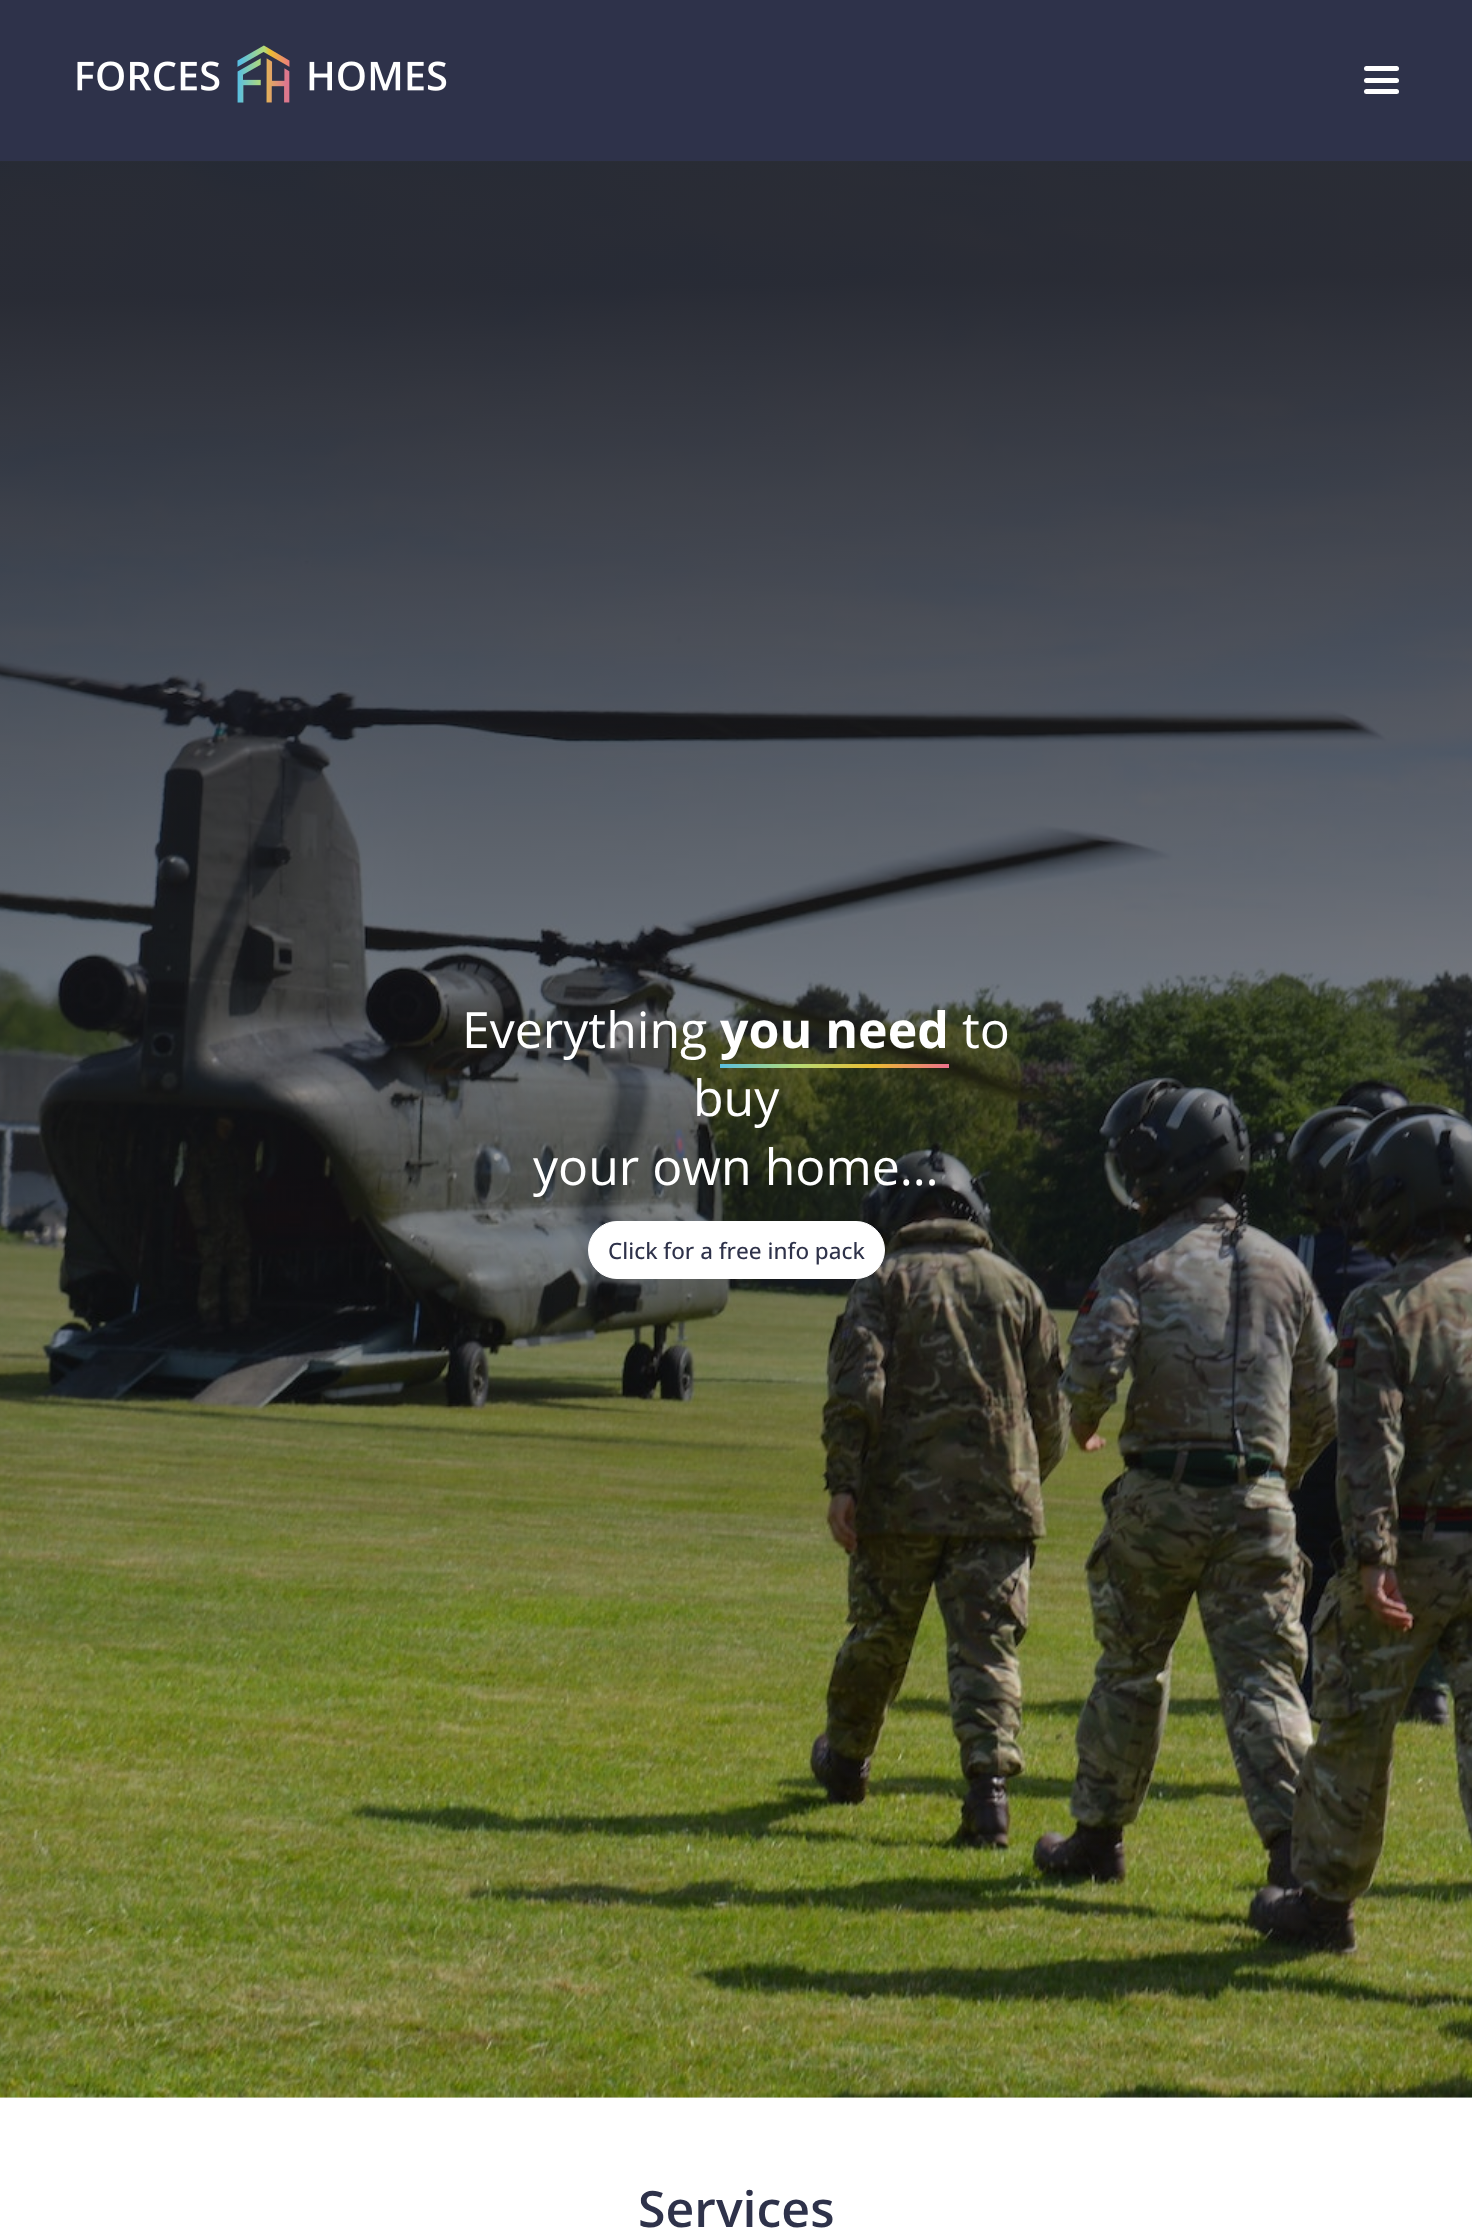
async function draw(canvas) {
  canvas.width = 1472;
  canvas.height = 2238;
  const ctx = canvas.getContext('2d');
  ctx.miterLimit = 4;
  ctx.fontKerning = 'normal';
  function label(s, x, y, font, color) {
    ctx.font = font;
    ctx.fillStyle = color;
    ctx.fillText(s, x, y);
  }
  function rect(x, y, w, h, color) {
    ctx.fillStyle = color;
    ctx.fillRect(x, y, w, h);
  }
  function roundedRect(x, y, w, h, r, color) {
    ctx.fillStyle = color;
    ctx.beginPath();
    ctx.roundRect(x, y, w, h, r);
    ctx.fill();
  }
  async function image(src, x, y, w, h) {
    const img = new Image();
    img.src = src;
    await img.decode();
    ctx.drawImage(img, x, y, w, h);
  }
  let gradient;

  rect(0, 0, 1472, 2238, '#fff');
  rect(0, 0, 1472, 161, '#2e324a');
  await image('assets/img1.png', 77, 45, 370, 58);
  roundedRect(1364, 66, 35, 5, 2.5, '#fff');
  roundedRect(1364, 78, 35, 5, 2.5, '#fff');
  roundedRect(1364, 89, 35, 5, 2.5, '#fff');
  await image('assets/img2.png', 0, 161, 1472, 1937);
  gradient = ctx.createLinearGradient(719, 149, 753, 2110);
  gradient.addColorStop(0.07, '#181921e6');
  gradient.addColorStop(0.8, '#110b081a');
  ctx.fillStyle = gradient;
  ctx.fillRect(0, 161, 1472, 1937);
  label('Everything', 462, 1048, '50px Open Sans', '#fff');
  label('you need', 720, 1048, 'bold 50px Open Sans', '#fff');
  gradient = ctx.createLinearGradient(733, 1029, 936, 1103);
  gradient.addColorStop(0, '#59bfe1');
  gradient.addColorStop(0.33, '#b4db77');
  gradient.addColorStop(0.67, '#ebbc31');
  gradient.addColorStop(1, '#ec708d');
  ctx.fillStyle = gradient;
  ctx.fillRect(720, 1064, 229, 4);
  label('to', 962, 1048, '50px Open Sans', '#fff');
  label('buy', 693, 1116, '50px Open Sans', '#fff');
  label('your own home…', 533, 1185, '50px Open Sans', '#fff');
  ctx.beginPath();
  ctx.roundRect(588.5, 1221.5, 296, 57, 28.5);
  ctx.fill();
  ctx.strokeStyle = '#fff';
  ctx.stroke();
  label('Click for a free info pack', 608, 1259, '500 22.5px Open Sans', '#2e324a');
  label('Services', 638, 2227, '600 50px Open Sans', '#2e324a');
}

draw(document.querySelector('canvas'));
